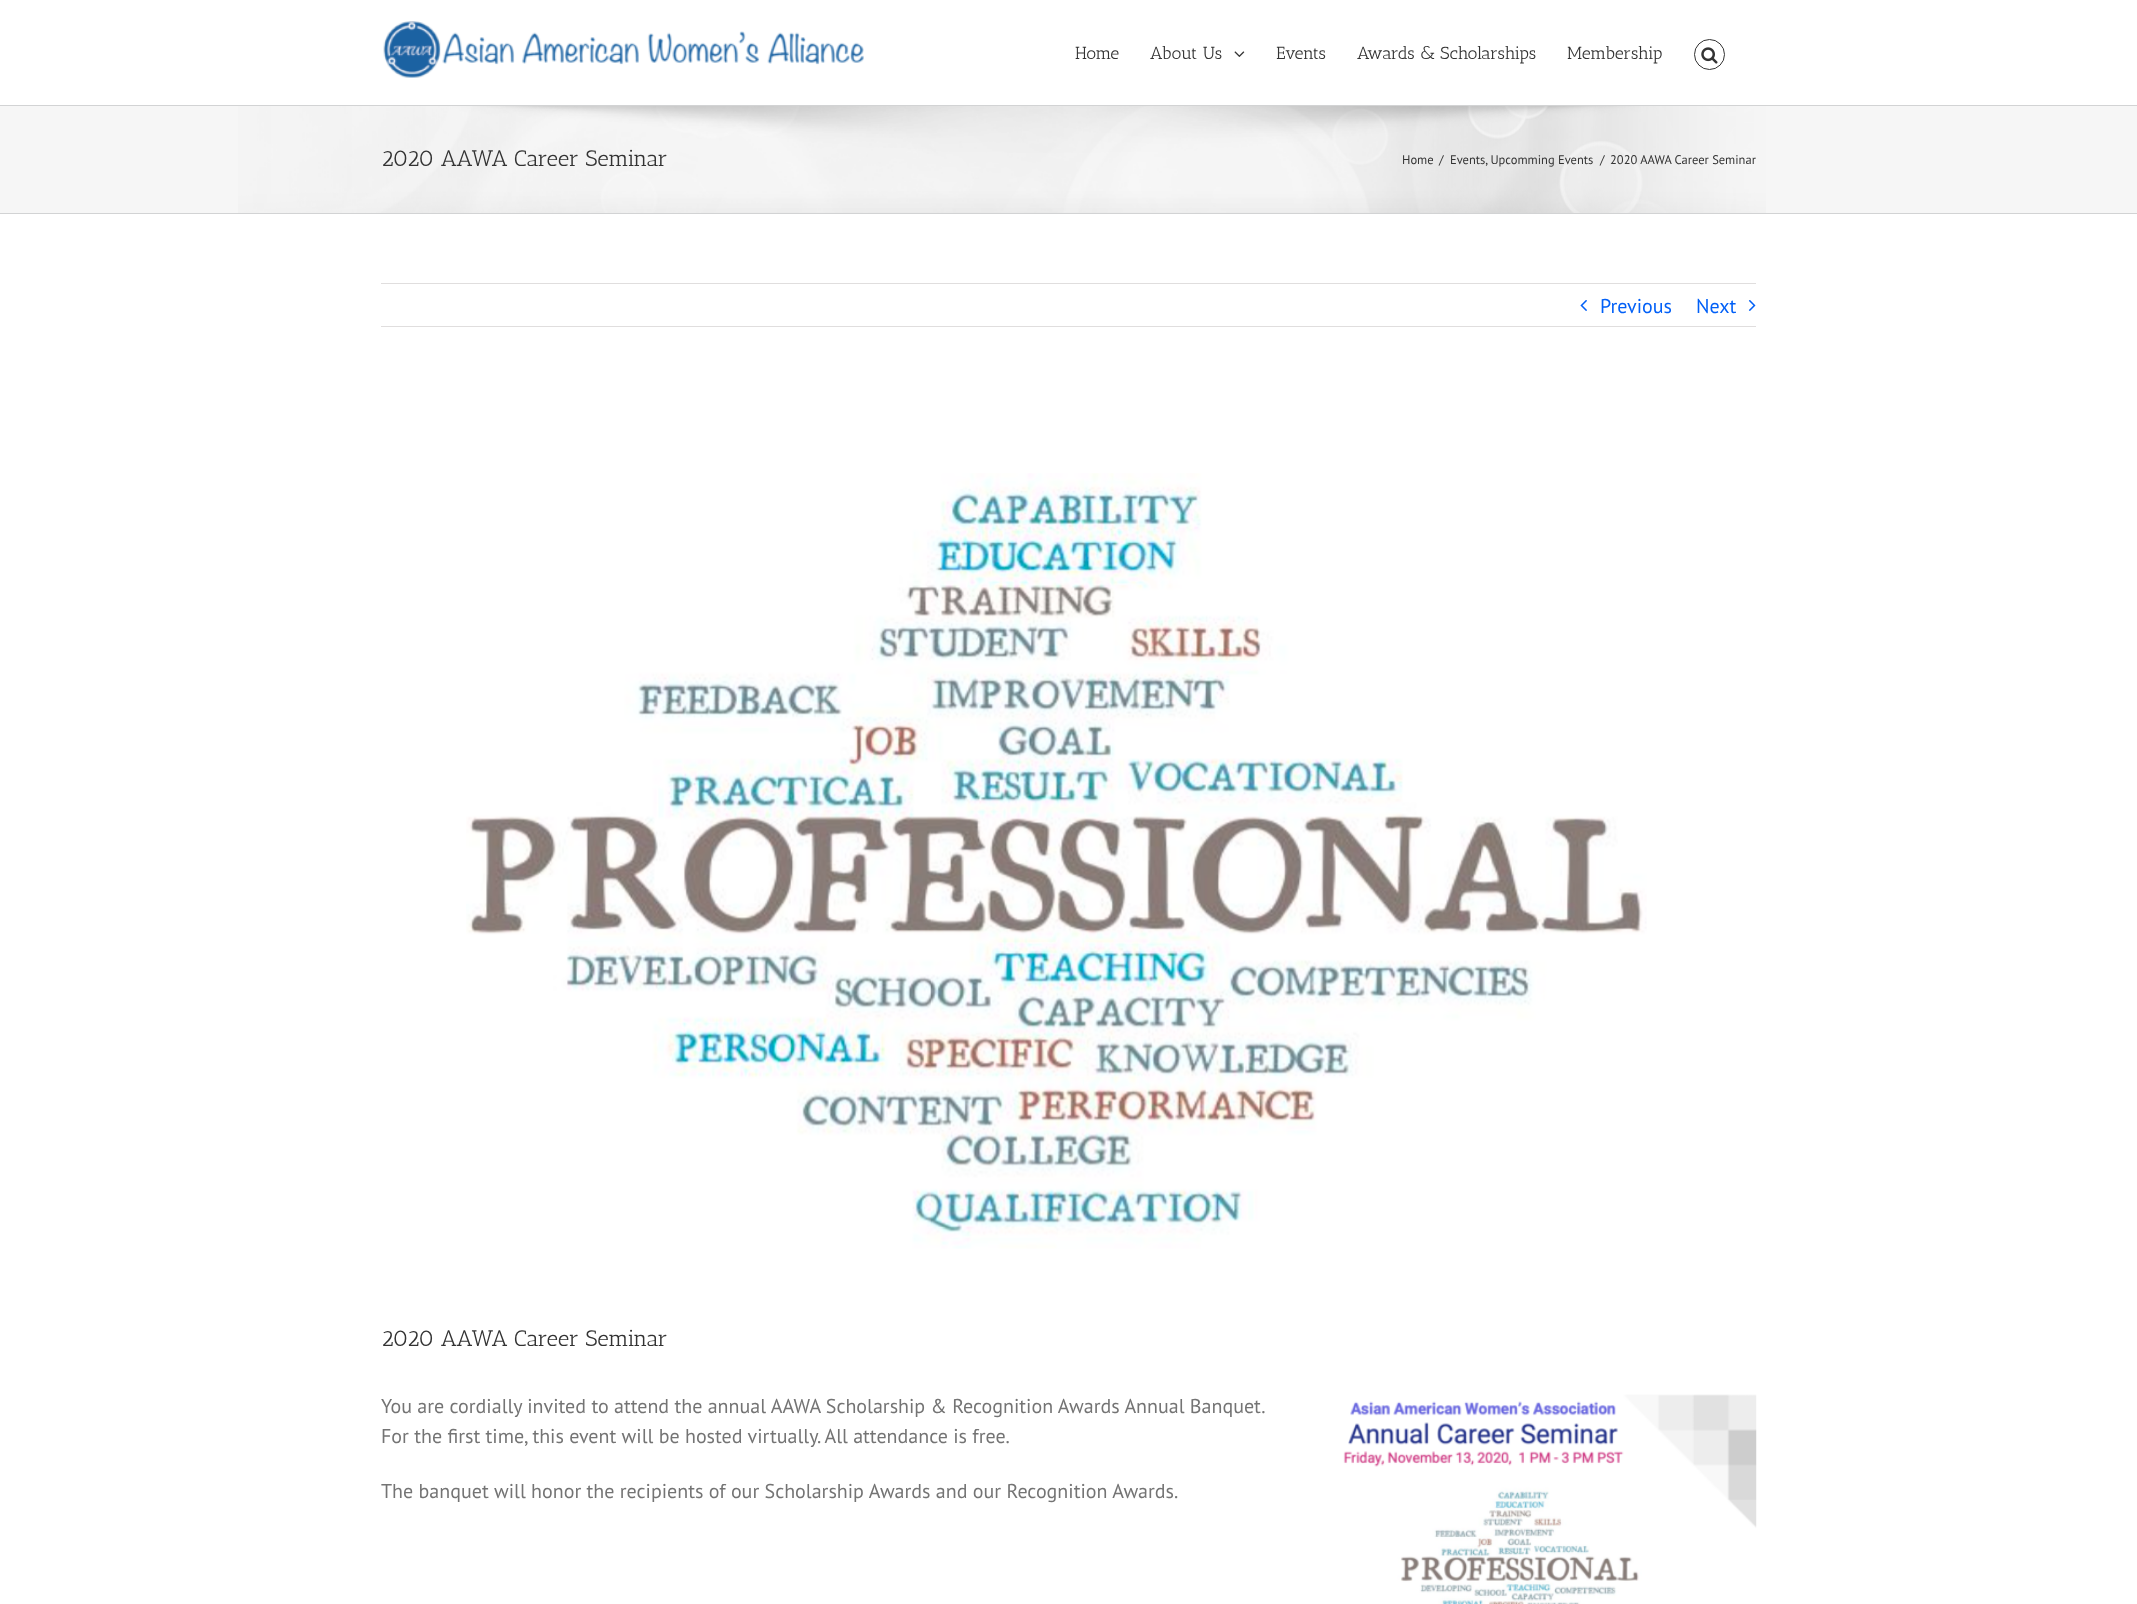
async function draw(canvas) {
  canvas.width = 2137;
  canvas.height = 1604;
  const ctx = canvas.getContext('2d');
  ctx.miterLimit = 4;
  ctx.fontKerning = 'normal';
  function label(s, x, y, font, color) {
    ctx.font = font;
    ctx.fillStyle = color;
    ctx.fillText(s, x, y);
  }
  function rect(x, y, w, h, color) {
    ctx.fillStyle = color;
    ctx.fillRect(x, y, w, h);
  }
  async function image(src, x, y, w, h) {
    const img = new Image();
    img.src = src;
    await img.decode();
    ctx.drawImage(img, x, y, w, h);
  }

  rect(0, 0, 2137, 1604, '#fff');
  await image('assets/img1.png', 383, 21, 481, 57);
  label('Home', 1075, 59, '17.5px Antic Slab', '#333');
  label('About Us', 1150, 59, '17.5px Antic Slab', '#333');
  await image('assets/img2.png', 1234, 51, 11, 6);
  label('Events', 1276, 59, '17.5px Antic Slab', '#333');
  label('Awards & Scholarships', 1357, 59, '17.5px Antic Slab', '#333');
  label('Membership', 1567, 59, '17.5px Antic Slab', '#333');
  ctx.beginPath();
  ctx.arc(1709.5, 54.5, 15, 0, 2 * Math.PI);
  ctx.strokeStyle = '#333';
  ctx.stroke();
  await image('assets/img3.png', 1701, 47, 17, 17);
  rect(0, 106, 2137, 107, '#f6f6f6');
  await image('assets/img4.png', 238, 106, 1528, 107);
  rect(0, 105, 2137, 1, '#d2d3d4');
  rect(0, 213, 2137, 1, '#d2d3d4');
  label('2020 AAWA Career Seminar', 381, 166, '22.5px Antic Slab', '#333');
  label('Home', 1402, 164, '12.5px PT Sans', '#333');
  label('/', 1439, 164, '12.5px PT Sans', '#333');
  label('Events, Upcomming Events', 1450, 164, '12.5px PT Sans', '#333');
  label('/', 1600, 164, '12.5px PT Sans', '#333');
  label('2020 AAWA Career Seminar', 1610, 164, '12.5px PT Sans', '#333');
  rect(381, 283, 1375, 1, '#e0dede');
  rect(381, 326, 1375, 1, '#e0dede');
  await image('assets/img5.png', 1580, 300, 7, 11);
  label('Previous', 1600, 313, '20px PT Sans', '#0260f7');
  label('Next', 1696, 313, '20px PT Sans', '#0260f7');
  await image('assets/img6.png', 1748, 300, 8, 11);
  await image('assets/img7.png', 466, 473, 1181, 776);
  label('2020 AAWA Career Seminar', 381, 1346, '22.5px Antic Slab', '#333');
  label('You are cordially invited to attend the annual AAWA Scholarship & Recognition Awards Annual Banquet.', 381, 1413, '20px PT Sans', '#747474');
  await image('assets/img8.png', 1343, 1394, 414, 210);
  label('For the first time, this event will be hosted virtually. All attendance is free.', 381, 1443, '20px PT Sans', '#747474');
  label('The banquet will honor the recipients of our Scholarship Awards and our Recognition Awards.', 381, 1498, '20px PT Sans', '#747474');
}

draw(document.querySelector('canvas'));
